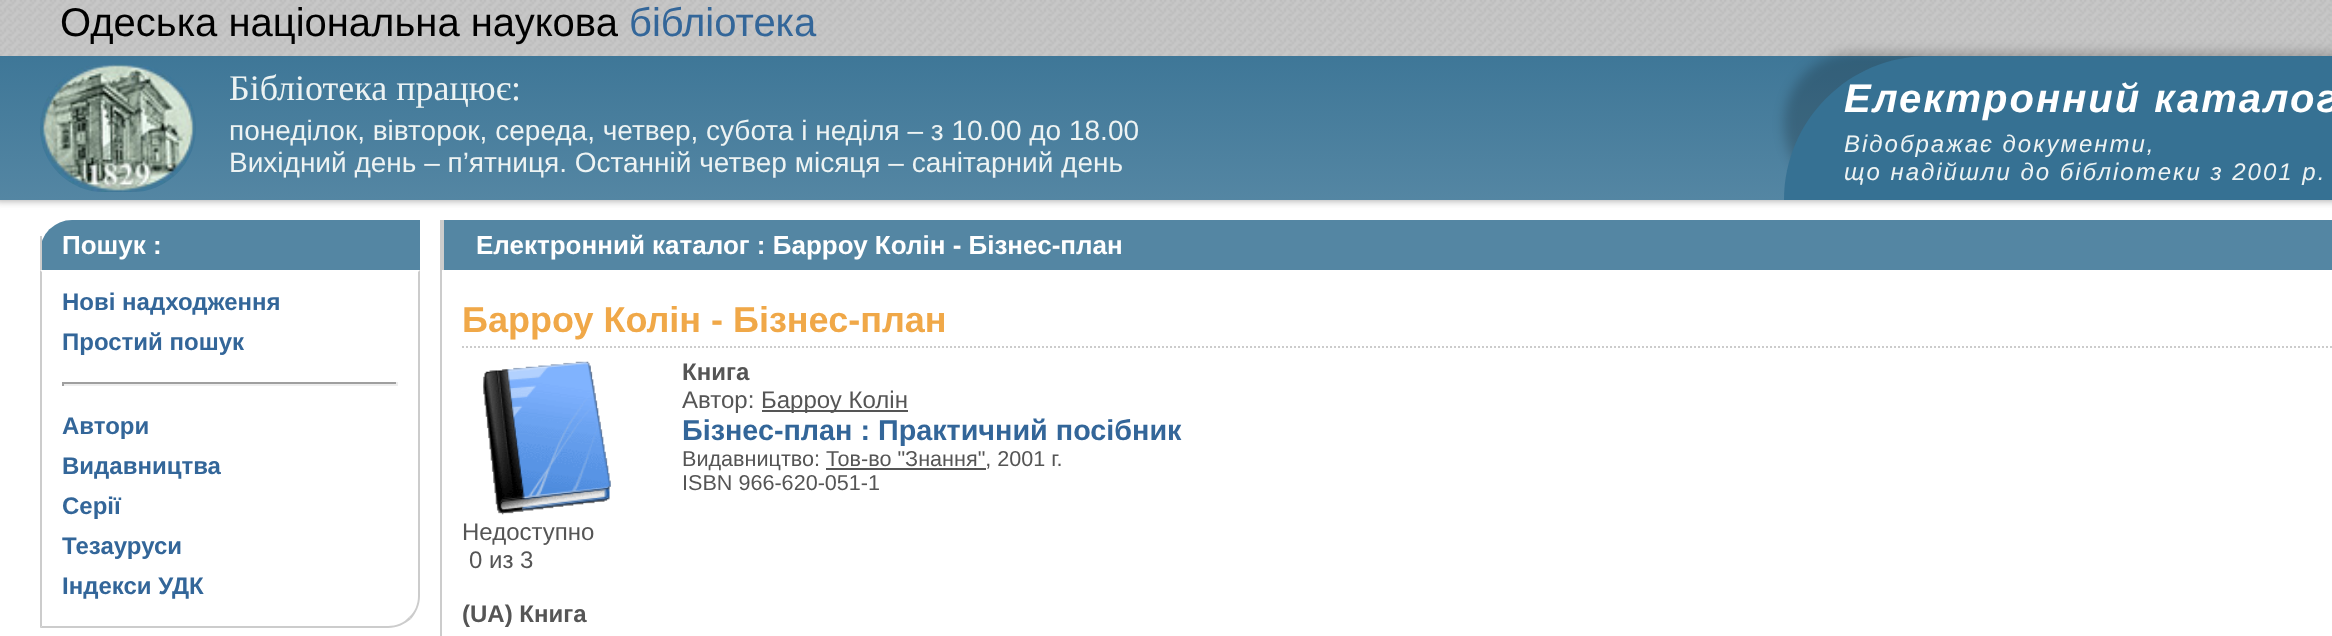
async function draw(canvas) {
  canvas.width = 2332;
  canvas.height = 636;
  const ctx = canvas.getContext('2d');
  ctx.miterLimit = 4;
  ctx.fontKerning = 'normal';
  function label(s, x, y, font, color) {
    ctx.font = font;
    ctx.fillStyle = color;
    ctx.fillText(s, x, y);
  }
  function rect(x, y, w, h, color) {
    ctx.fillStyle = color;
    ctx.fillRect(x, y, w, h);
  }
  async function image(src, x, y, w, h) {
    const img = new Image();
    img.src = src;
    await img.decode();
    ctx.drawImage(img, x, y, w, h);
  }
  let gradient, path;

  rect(0, 0, 2332, 636, '#fff');
  ctx.fillStyle = '#999';
  ctx.filter = 'blur(4px)';
  ctx.beginPath();
  ctx.rect(-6, 0, 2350, 200);
  ctx.fill();
  ctx.filter = 'none';
  gradient = ctx.createLinearGradient(1200, 0, 1200, 200);
  gradient.addColorStop(0, '#367193');
  gradient.addColorStop(1, '#5486a3');
  ctx.fillStyle = gradient;
  ctx.fillRect(0, 56, 1927, 144);
  await image('assets/img1.png', 0, 0, 2332, 56);
  label('Одеська національна наукова', 60, 36, '40px Liberation Sans', '#000');
  label('бібліотека', 629, 36, '40px Liberation Sans', '#369');
  await image('assets/img2.png', 40, 64, 156, 128);
  label('Бібліотека працює:', 229, 100, '36px Liberation Serif', '#edf3f3');
  label('понеділок, вівторок, середа, четвер, субота і неділя – з 10.00 до 18.00', 229, 140, '28px Liberation Sans', '#edf3f3');
  label('Вихідний день – п’ятниця. Останній четвер місяця – санітарний день', 229, 172, '28px Liberation Sans', '#edf3f3');
  ctx.save();
  ctx.beginPath();
  ctx.rect(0, 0, 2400, 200);
  ctx.clip();
  ctx.fillStyle = '#00000033';
  ctx.filter = 'blur(6px)';
  ctx.beginPath();
  ctx.roundRect(1784, 52, 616, 144, 144);
  ctx.fill();
  ctx.filter = 'none';
  ctx.restore();
  ctx.fillStyle = '#367193';
  path = new Path2D('M1928 56H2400V200H1784C1784 120.5 1848.5 56 1928 56Z');
  ctx.fill(path);
  ctx.letterSpacing = '2px';
  label('Електронний каталог', 1844, 112, 'italic bold 40px Liberation Sans', '#fff');
  label('Відображає документи,', 1844, 152, 'italic 24px Liberation Sans', '#edf3f3');
  label('що надійшли до бібліотеки з 2001 р.', 1844, 180, 'italic 24px Liberation Sans', '#edf3f3');
  ctx.fillStyle = '#5486a3';
  ctx.beginPath();
  ctx.roundRect(40, 220, 380, 50, [32, 0, 0, 0]);
  ctx.fill();
  rect(40, 236, 2, 34, '#ccc');
  ctx.letterSpacing = '0px';
  label('Пошук :', 62, 254, 'bold 26px Liberation Sans', '#fff');
  ctx.fillStyle = '#ccc';
  path = new Path2D('M420 270L418 272V596C418 604 415 612 409 617L411 619C416 613 420 605 420 596Z');
  ctx.fill(path);
  path = new Path2D('M388 628C397 628 405 624 411 619L409 617C404 623 396 626 388 626H42L40 628Z');
  ctx.fill(path);
  path = new Path2D('M40 270V628L42 626V272Z');
  ctx.fill(path);
  label('Нові надходження', 62, 310, 'bold 24px Liberation Sans', '#369');
  label('Простий пошук', 62, 350, 'bold 24px Liberation Sans', '#369');
  rect(62, 382, 336, 2, '#9f9f9f');
  rect(396, 382, 2, 4, '#eee');
  rect(62, 384, 336, 2, '#eee');
  rect(62, 382, 2, 4, '#9f9f9f');
  label('Автори', 62, 434, 'bold 24px Liberation Sans', '#369');
  label('Видавництва', 62, 474, 'bold 24px Liberation Sans', '#369');
  label('Серії', 62, 514, 'bold 24px Liberation Sans', '#369');
  label('Тезауруси', 62, 554, 'bold 24px Liberation Sans', '#369');
  label('Індекси УДК', 62, 594, 'bold 24px Liberation Sans', '#369');
  rect(440, 220, 2, 416, '#ccc');
  rect(444, 220, 1888, 50, '#5486a3');
  rect(442, 220, 2, 50, '#ccc');
  label('Електронний каталог : Барроу Колін - Бізнес-план', 476, 254, 'bold 26px Liberation Sans', '#fff');
  path = new Path2D('M462 347H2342');
  ctx.strokeStyle = '#ccc';
  ctx.lineWidth = 2;
  ctx.setLineDash([2, 2]);
  ctx.stroke(path);
  label('Барроу Колін - Бізнес-план', 462, 332, 'bold 36px Liberation Sans', '#f0a848');
  label('Книга', 682, 380, 'bold 24px Liberation Sans', '#555');
  label('Автор:', 682, 408, '24px Liberation Sans', '#555');
  rect(762, 410, 146, 2, '#555');
  label('Барроу Колін', 761, 408, '24px Liberation Sans', '#555');
  label('Бізнес-план : Практичний посібник', 682, 440, 'bold 28.75px Liberation Sans', '#369');
  label('Видавництво: Тов-во "Знання", 2001 г.', 682, 466, '21.6px Liberation Sans', '#555');
  rect(826, 468, 160, 2, '#555');
  label('ISBN 966-620-051-1', 682, 490, '21.6px Liberation Sans', '#555');
  await image('assets/img3.png', 483, 361, 128, 154);
  label('Недоступно', 462, 540, '24px Liberation Sans', '#555');
  label('0 из 3', 469, 568, '24px Liberation Sans', '#555');
  label('(UA) Книга', 462, 622, 'bold 24px Liberation Sans', '#555');
}

draw(document.querySelector('canvas'));
